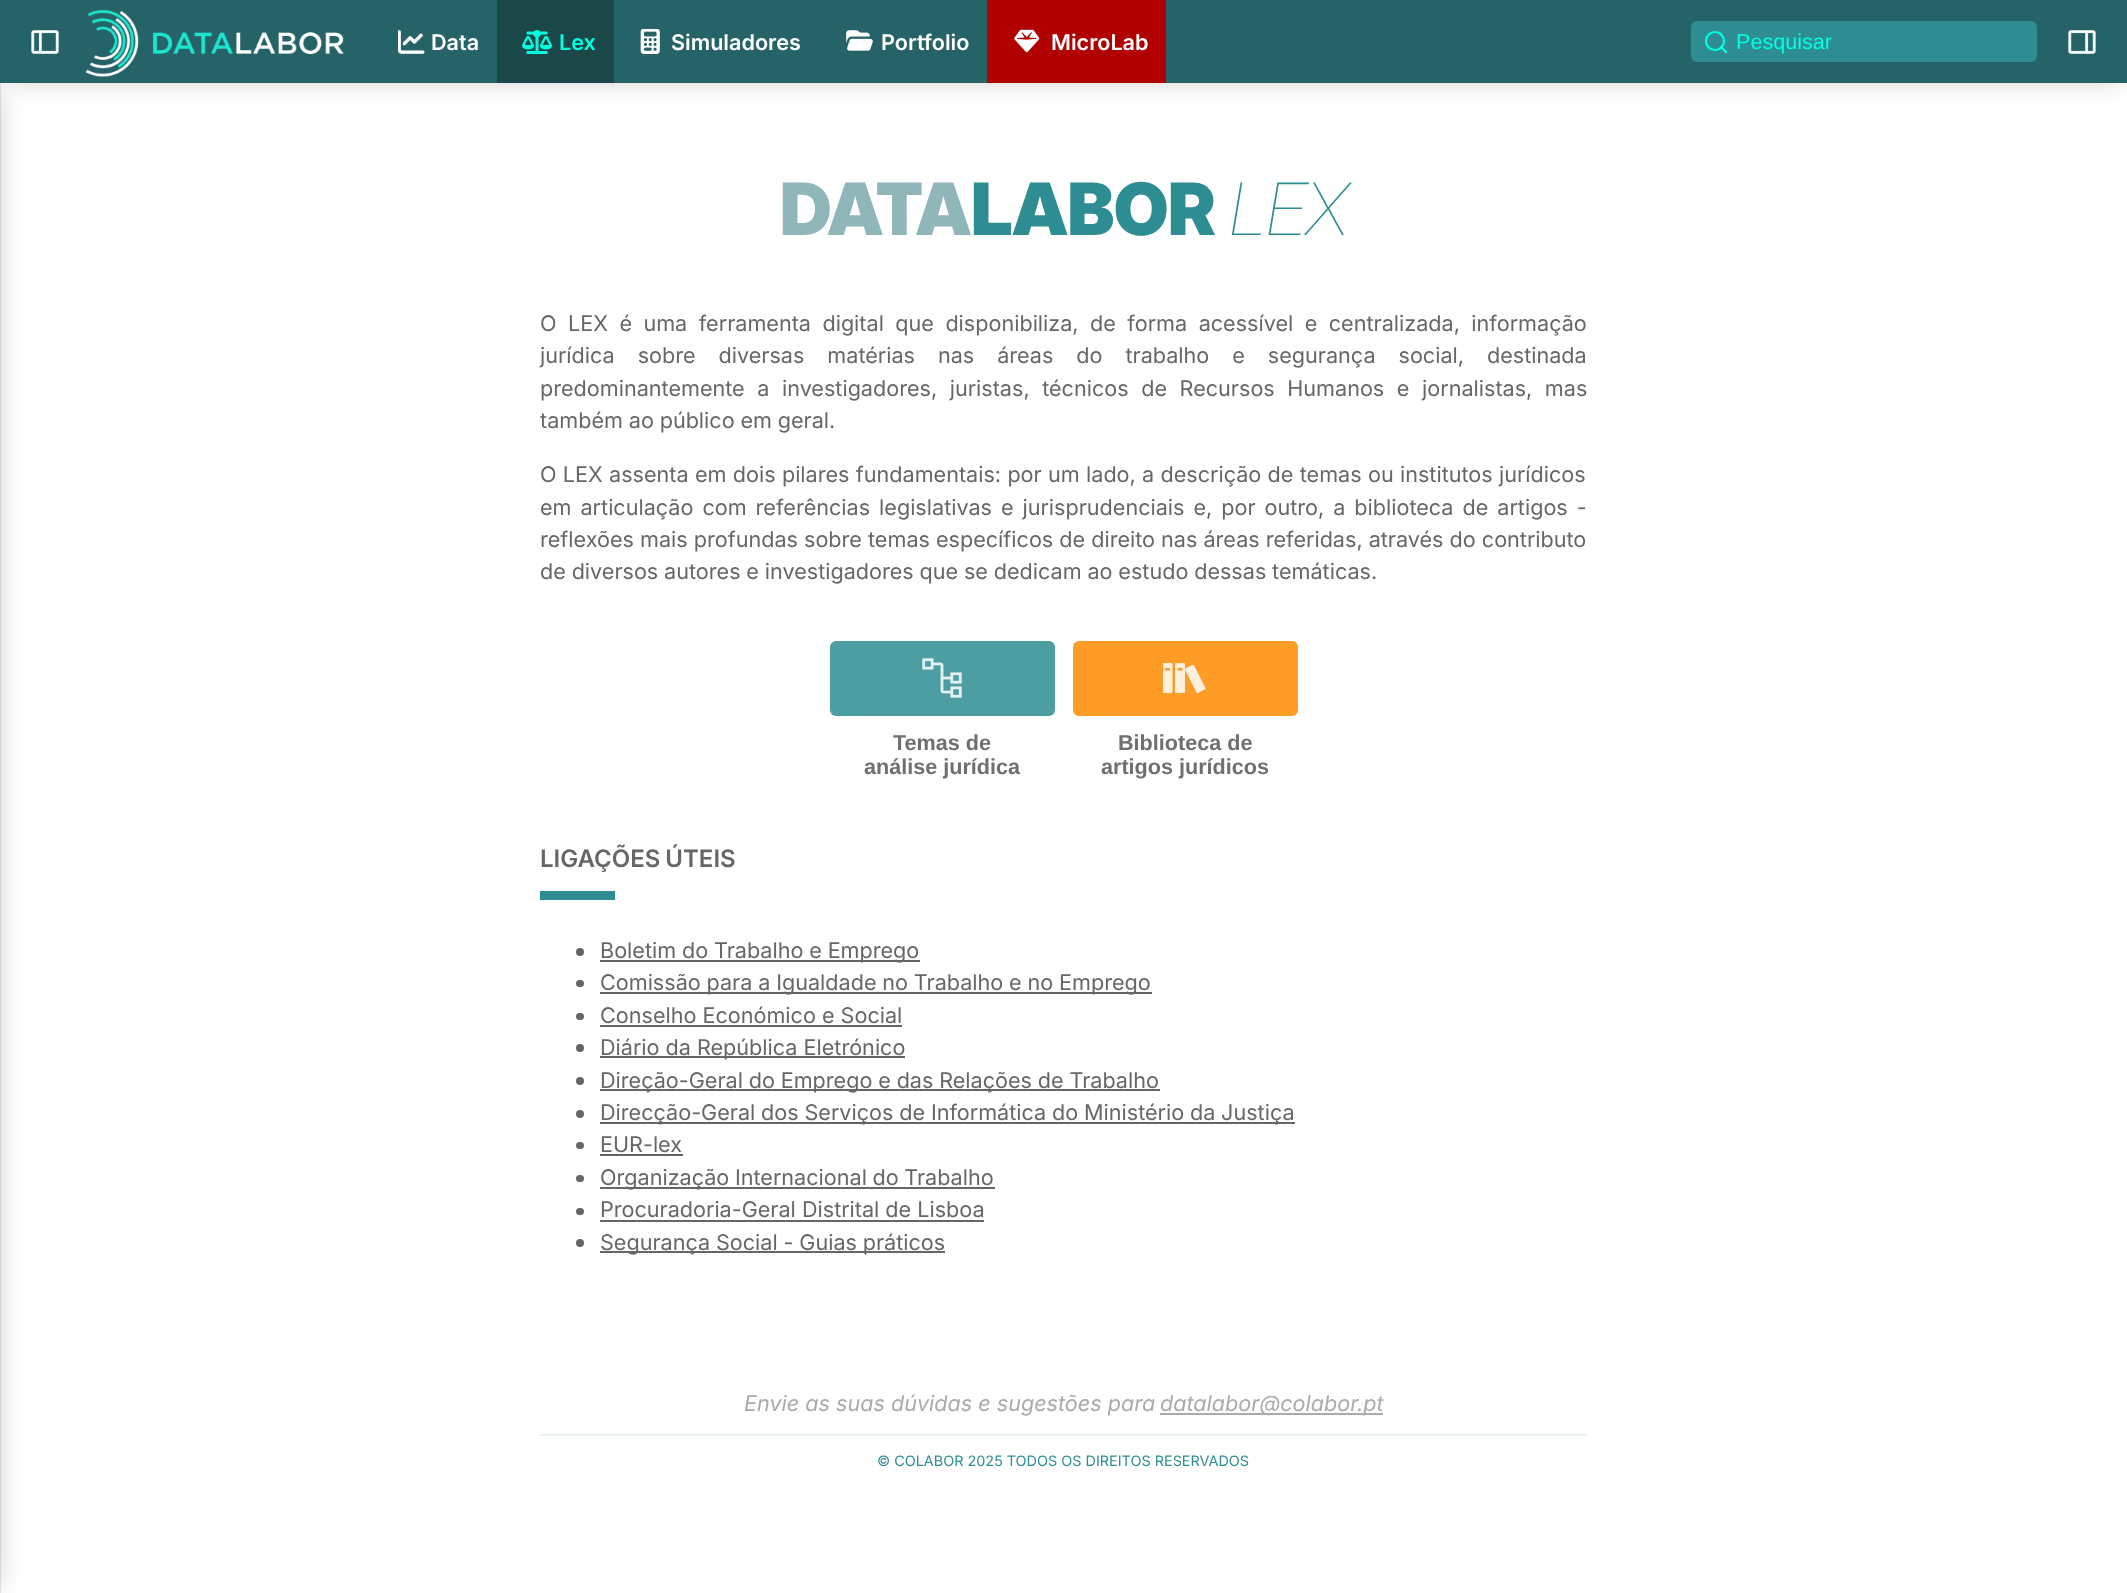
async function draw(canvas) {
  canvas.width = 2127;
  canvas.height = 1593;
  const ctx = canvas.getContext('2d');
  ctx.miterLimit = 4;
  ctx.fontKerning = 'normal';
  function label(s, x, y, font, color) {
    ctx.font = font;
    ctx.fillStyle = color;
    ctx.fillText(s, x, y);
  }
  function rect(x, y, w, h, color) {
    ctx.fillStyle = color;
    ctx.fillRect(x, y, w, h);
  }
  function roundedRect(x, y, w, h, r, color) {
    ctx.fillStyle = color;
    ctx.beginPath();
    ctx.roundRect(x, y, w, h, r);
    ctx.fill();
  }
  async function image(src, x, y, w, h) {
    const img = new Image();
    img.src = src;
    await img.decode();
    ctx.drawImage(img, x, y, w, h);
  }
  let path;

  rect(0, 0, 2127, 1593, '#fff');
  ctx.fillStyle = '#0000004d';
  ctx.filter = 'blur(15px)';
  ctx.beginPath();
  ctx.rect(-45, 90, 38, 1496);
  ctx.fill();
  ctx.filter = 'none';
  rect(0, 83, 1, 1510, '#8fb7ba4d');
  ctx.save();
  path = new Path2D('M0 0H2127V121H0ZM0 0H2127V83H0Z');
  ctx.clip(path, 'evenodd');
  ctx.fillStyle = '#0000004d';
  ctx.filter = 'blur(15px)';
  ctx.beginPath();
  ctx.rect(8, 8, 2112, 67);
  ctx.fill();
  ctx.filter = 'none';
  ctx.restore();
  rect(0, 0, 2127, 83, '#00484dd9');
  await image('assets/img1.png', 31, 30, 28, 24);
  await image('assets/img2.png', 85, 9, 259, 68);
  await image('assets/img3.png', 398, 30, 27, 24);
  label('Data', 431, 50, '600 21.6px Inter', '#fff');
  rect(497, 0, 117, 83, '#1b4749');
  await image('assets/img4.png', 522, 30, 30, 24);
  label('Lex', 559, 50, '600 21.6px Inter', '#00ffe1');
  await image('assets/img5.png', 640, 29, 20, 25);
  label('Simuladores', 671, 50, '600 21.6px Inter', '#fff');
  await image('assets/img6.png', 846, 30, 27, 21);
  label('Portfolio', 881, 50, '600 21.6px Inter', '#fff');
  rect(987, 0, 179, 83, '#b10000');
  await image('assets/img7.png', 1014, 29, 26, 24);
  label('MicroLab', 1051, 50, '600 21.6px Inter', '#fff');
  roundedRect(1691, 21, 346, 41, 6, '#2e8d93');
  ctx.beginPath();
  ctx.arc(1715, 41, 9, 0, 2 * Math.PI);
  ctx.strokeStyle = '#00ffe1';
  ctx.lineWidth = 2.2;
  ctx.stroke();
  path = new Path2D('M1726 52L1721 47');
  ctx.lineCap = 'round';
  ctx.lineJoin = 'round';
  ctx.stroke(path);
  label('Pesquisar', 1736, 49, '21.6px Liberation Sans', '#00ffe1');
  await image('assets/img8.png', 2068, 30, 28, 24);
  label('DATA', 780, 235, '900 72px Inter', '#8fb7ba');
  label('LABOR', 971, 235, '900 72px Inter', '#2e8d93');
  label('LEX', 1229, 235, 'italic 100 72px Inter', '#2e8d93');
  ctx.wordSpacing = '5.4px';
  label('O LEX é uma ferramenta digital que disponibiliza, de forma acessível e centralizada, informação', 540, 331, '21.6px Inter', '#666');
  ctx.wordSpacing = '16.9px';
  label('jurídica sobre diversas matérias nas áreas do trabalho e segurança social, destinada', 540, 363, '21.6px Inter', '#666');
  ctx.wordSpacing = '6.5px';
  label('predominantemente a investigadores, juristas, técnicos de Recursos Humanos e jornalistas, mas', 540, 396, '21.6px Inter', '#666');
  ctx.wordSpacing = '-0.25px';
  label('também ao público em geral.', 540, 428, '21.6px Inter', '#666');
  ctx.wordSpacing = '0.25px';
  label('O LEX assenta em dois pilares fundamentais: por um lado, a descrição de temas ou institutos jurídicos', 540, 482, '21.6px Inter', '#666');
  ctx.wordSpacing = '2.9px';
  label('em articulação com referências legislativas e jurisprudenciais e, por outro, a biblioteca de artigos -', 540, 515, '21.6px Inter', '#666');
  ctx.wordSpacing = '0px';
  label('reflexões mais profundas sobre temas específicos de direito nas áreas referidas, através do contributo', 540, 547, '21.6px Inter', '#666');
  ctx.wordSpacing = '-0.25px';
  label('de diversos autores e investigadores que se dedicam ao estudo dessas temáticas.', 540, 579, '21.6px Inter', '#666');
  roundedRect(830, 641, 225, 75, 6, '#4d9ea3');
  await image('assets/img9.png', 922, 658, 40, 40);
  ctx.wordSpacing = '0px';
  label('Temas de', 893, 750, 'bold 21.6px Liberation Sans', '#6f6f6f');
  label('análise jurídica', 864, 774, 'bold 21.6px Liberation Sans', '#6f6f6f');
  roundedRect(1073, 641, 225, 75, 6, '#ff9c26');
  await image('assets/img10.png', 1163, 663, 43, 30);
  label('Biblioteca de', 1118, 750, 'bold 21.6px Liberation Sans', '#6f6f6f');
  label('artigos jurídicos', 1101, 774, 'bold 21.6px Liberation Sans', '#6f6f6f');
  ctx.wordSpacing = '-1px';
  label('LIGAÇÕES ÚTEIS', 540, 867, '600 24px Inter', '#666');
  rect(540, 891, 75, 9, '#2e8d93');
  ctx.fillStyle = '#666';
  ctx.beginPath();
  ctx.arc(580, 952, 4, 0, 2 * Math.PI);
  ctx.fill();
  rect(600, 960, 320, 2, '#666');
  ctx.wordSpacing = '-0.25px';
  label('Boletim do Trabalho e Emprego', 600, 958, '21.6px Inter', '#666');
  roundedRect(576, 980, 8, 7, 3.5, '#666');
  rect(600, 992, 552, 2, '#666');
  label('Comissão para a Igualdade no Trabalho e no Emprego', 600, 990, '21.6px Inter', '#666');
  roundedRect(576, 1013, 8, 7, 3.5, '#666');
  ctx.wordSpacing = '0px';
  label('Conselho Económico e Social', 600, 1023, '21.6px Inter', '#666');
  rect(600, 1025, 302, 2, '#666');
  ctx.beginPath();
  ctx.arc(580, 1048, 4, 0, 2 * Math.PI);
  ctx.fill();
  rect(600, 1056, 305, 2, '#666');
  label('Diário da República Eletrónico', 600, 1055, '21.6px Inter', '#666');
  ctx.beginPath();
  ctx.arc(580, 1081, 4, 0, 2 * Math.PI);
  ctx.fill();
  rect(600, 1089, 560, 2, '#666');
  ctx.wordSpacing = '-0.25px';
  label('Direção-Geral do Emprego e das Relações de Trabalho', 600, 1088, '21.6px Inter', '#666');
  ctx.beginPath();
  ctx.arc(580, 1114, 4, 0, 2 * Math.PI);
  ctx.fill();
  rect(600, 1122, 695, 2, '#666');
  label('Direcção-Geral dos Serviços de Informática do Ministério da Justiça', 600, 1120, '21.6px Inter', '#666');
  roundedRect(576, 1142, 8, 7, 3.5, '#666');
  ctx.wordSpacing = '0px';
  label('EUR-lex', 600, 1152, '21.6px Inter', '#666');
  rect(600, 1154, 83, 2, '#666');
  roundedRect(576, 1175, 8, 7, 3.5, '#666');
  rect(600, 1187, 395, 2, '#666');
  ctx.wordSpacing = '-0.5px';
  label('Organização Internacional do Trabalho', 600, 1185, '21.6px Inter', '#666');
  roundedRect(576, 1208, 8, 7, 3.5, '#666');
  ctx.wordSpacing = '0px';
  label('Procuradoria-Geral Distrital de Lisboa', 600, 1217, '21.6px Inter', '#666');
  rect(600, 1220, 384, 2, '#666');
  ctx.beginPath();
  ctx.arc(580, 1243, 4, 0, 2 * Math.PI);
  ctx.fill();
  rect(600, 1251, 345, 2, '#666');
  ctx.wordSpacing = '-0.25px';
  label('Segurança Social - Guias práticos', 600, 1250, '21.6px Inter', '#666');
  ctx.wordSpacing = '0px';
  label('Envie as suas dúvidas e sugestões para', 744, 1411, 'italic 21.6px Inter', '#aaa');
  rect(1160, 1413, 223, 2, '#aaa');
  label('datalabor@colabor.pt', 1160, 1411, 'italic 21.6px Inter', '#aaa');
  rect(540, 1434, 1047, 2, '#e9f0f2');
  label('© COLABOR 2025 TODOS OS DIREITOS RESERVADOS', 877, 1466, '14.4px Inter', '#2e8d93');
}

draw(document.querySelector('canvas'));
